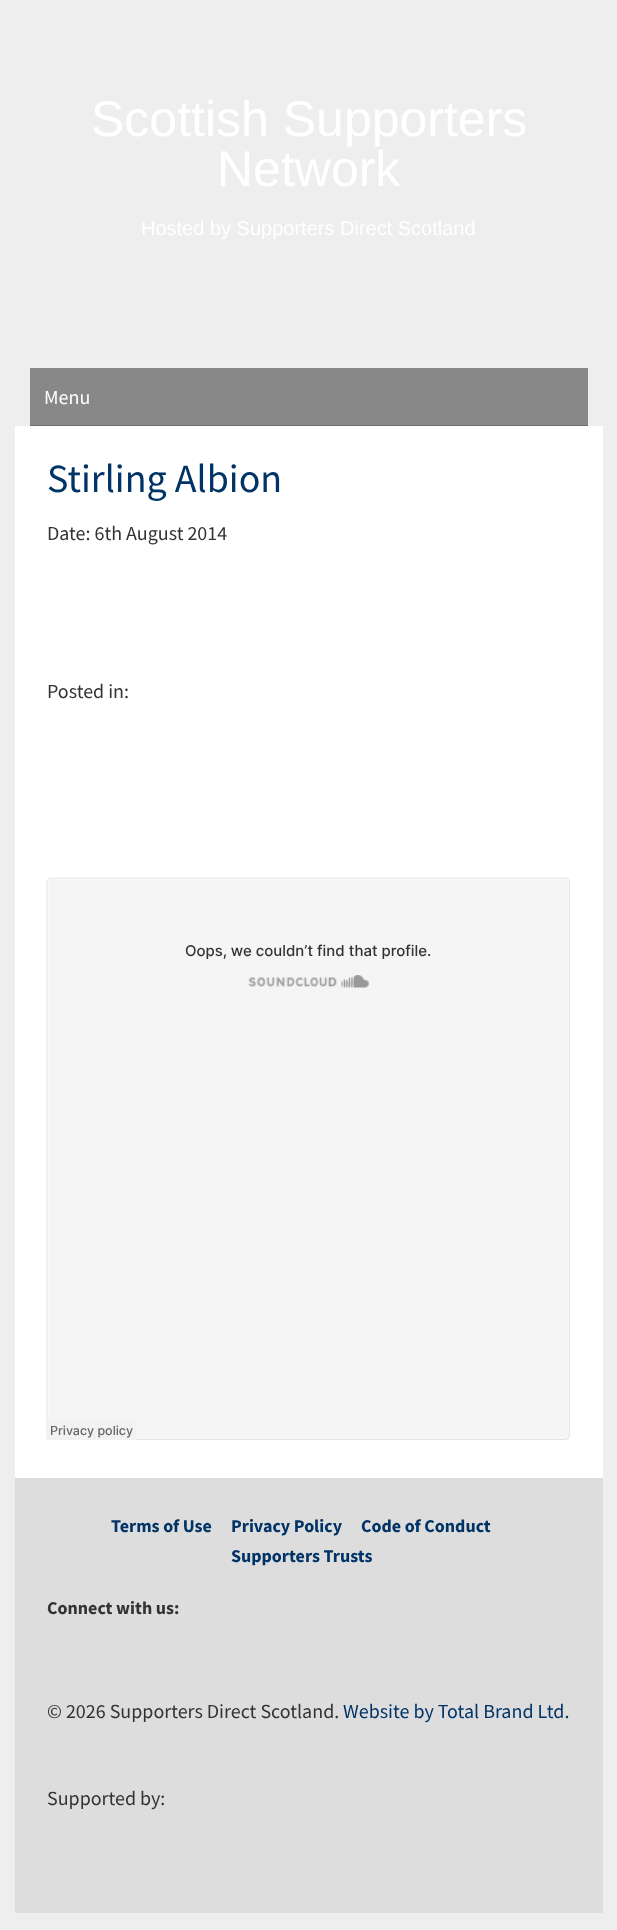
async function draw(canvas) {
  canvas.width = 617;
  canvas.height = 1930;
  const ctx = canvas.getContext('2d');
  ctx.miterLimit = 4;
  ctx.fontKerning = 'normal';
  function label(s, x, y, font, color) {
    ctx.font = font;
    ctx.fillStyle = color;
    ctx.fillText(s, x, y);
  }
  function rect(x, y, w, h, color) {
    ctx.fillStyle = color;
    ctx.fillRect(x, y, w, h);
  }
  async function image(src, x, y, w, h) {
    const img = new Image();
    img.src = src;
    await img.decode();
    ctx.drawImage(img, x, y, w, h);
  }

  rect(0, 0, 617, 1930, '#eee');
  label('Scottish Supporters', 91, 136, '50px Liberation Sans', '#fff');
  label('Network', 217, 186, '50px Liberation Sans', '#fff');
  label('Hosted by Supporters Direct Scotland', 141, 235, '20px Liberation Sans', '#fff');
  rect(30, 368, 558, 57, '#888');
  rect(30, 425, 558, 1, '#6d6d6d');
  label('Menu', 44, 404, '20px Source Sans Pro', '#fff');
  rect(15, 426, 588, 1052, '#fff');
  label('Stirling Albion', 47, 492, '40px Source Sans Pro', '#036');
  label('Date: 6th August 2014', 47, 540, '20px Source Sans Pro', '#333');
  label('Posted in:', 47, 698, '20px Source Sans Pro', '#333');
  await image('assets/img1.png', 46, 877, 524, 563);
  rect(15, 1478, 588, 435, '#ddd');
  label('Terms of Use', 111, 1532, 'bold 18px Source Sans Pro', '#036');
  label('Privacy Policy', 231, 1532, 'bold 18px Source Sans Pro', '#036');
  label('Code of Conduct', 361, 1532, 'bold 18px Source Sans Pro', '#036');
  label('Supporters Trusts', 231, 1562, 'bold 18px Source Sans Pro', '#036');
  label('Connect with us:', 47, 1614, 'bold 18px Source Sans Pro', '#333');
  label('© 2026 Supporters Direct Scotland.', 47, 1718, '20px Source Sans Pro', '#333');
  label('Website by Total Brand Ltd.', 343, 1718, '20px Source Sans Pro', '#036');
  label('Supported by:', 47, 1805, '20px Source Sans Pro', '#333');
}

draw(document.querySelector('canvas'));
